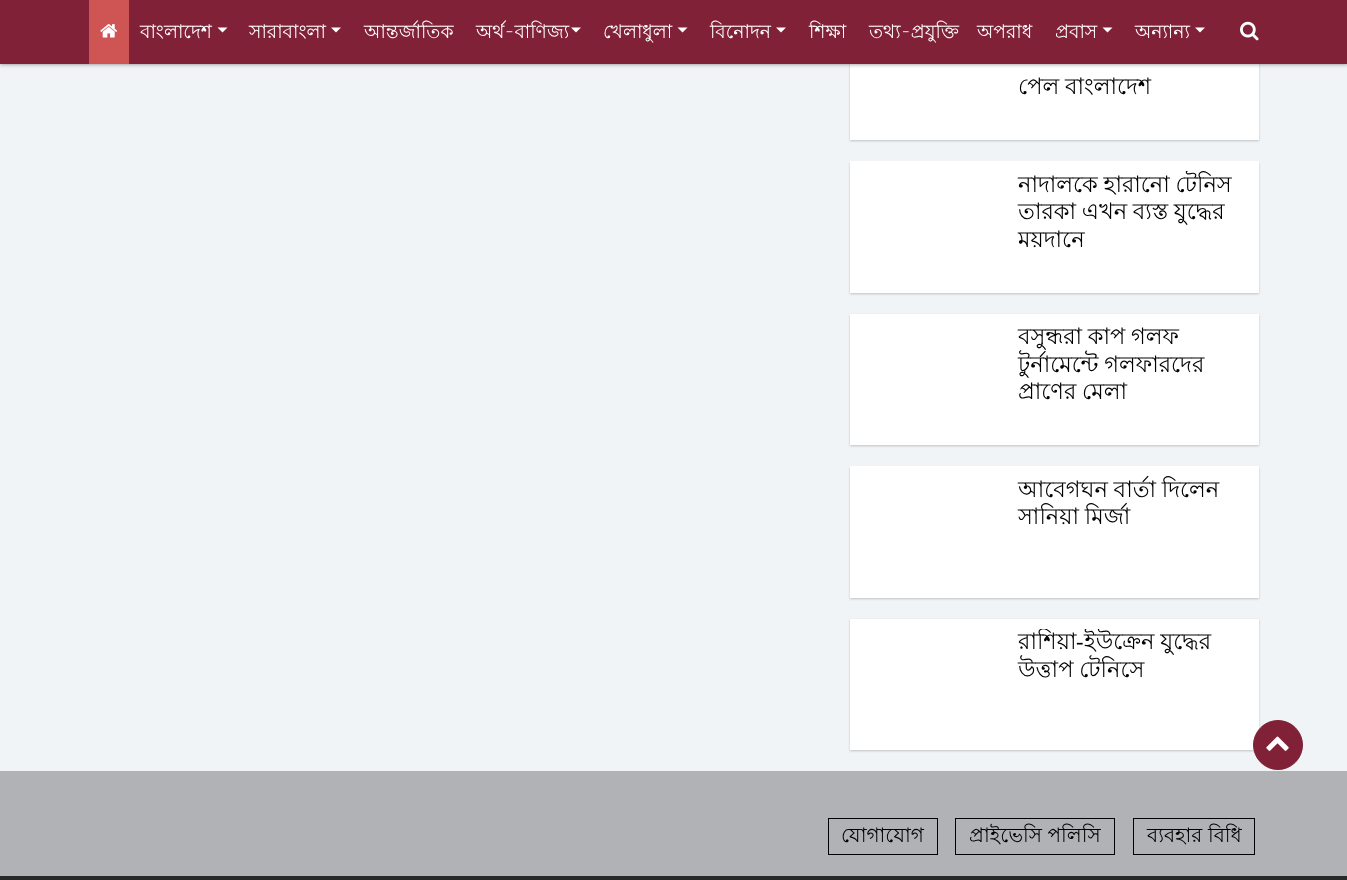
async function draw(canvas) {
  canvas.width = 1347;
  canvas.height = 880;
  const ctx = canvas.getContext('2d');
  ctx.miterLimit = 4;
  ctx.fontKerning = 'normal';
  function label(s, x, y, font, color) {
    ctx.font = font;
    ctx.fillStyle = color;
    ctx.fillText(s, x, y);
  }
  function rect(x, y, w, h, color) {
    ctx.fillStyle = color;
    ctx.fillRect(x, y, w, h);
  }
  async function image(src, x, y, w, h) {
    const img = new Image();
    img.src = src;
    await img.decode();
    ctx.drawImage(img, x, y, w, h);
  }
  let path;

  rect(0, 0, 1347, 880, '#f1f4f7');
  ctx.fillStyle = '#00000033';
  ctx.filter = 'blur(1px)';
  ctx.beginPath();
  ctx.rect(850, 10, 409, 131);
  ctx.fill();
  ctx.filter = 'none';
  rect(850, 64, 409, 76, '#fff');
  ctx.fillStyle = '#32323299';
  ctx.filter = 'blur(2px)';
  ctx.beginPath();
  ctx.rect(0, 0, 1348, 64);
  ctx.fill();
  ctx.filter = 'none';
  rect(0, 0, 1347, 64, '#802138');
  rect(89, 0, 40, 64, '#cf5555');
  await image('assets/img1.png', 100, 24, 18, 14);
  label('বাংলাদেশ', 140, 38, '18.75px Lohit Bengali', '#fff');
  path = new Path2D('M217.5 27.5H227.5L222.5 32.5Z');
  ctx.fill(path);
  label('সারাবাংলা', 249, 38, '18.75px Lohit Bengali', '#fff');
  path = new Path2D('M331 27.5H341L336 32.5Z');
  ctx.fill(path);
  label('আন্তর্জাতিক', 364, 38, '18.75px Lohit Bengali', '#fff');
  label('অর্থ-বাণিজ্য', 476, 38, '18.75px Lohit Bengali', '#fff');
  path = new Path2D('M571 27.5H581L576 32.5Z');
  ctx.fill(path);
  label('খেলাধুলা', 603, 38, '18.75px Lohit Bengali', '#fff');
  path = new Path2D('M677.5 27.5H687.5L682.5 32.5Z');
  ctx.fill(path);
  label('বিনোদন', 710, 38, '18.75px Lohit Bengali', '#fff');
  path = new Path2D('M776 27.5H786L781 32.5Z');
  ctx.fill(path);
  label('শিক্ষা', 809, 38, '18.75px Lohit Bengali', '#fff');
  label('তথ্য-প্রযুক্তি', 869, 38, '18.75px Lohit Bengali', '#fff');
  label('অপরাধ', 977, 38, '18.75px Lohit Bengali', '#fff');
  label('প্রবাস', 1055, 38, '18.75px Lohit Bengali', '#fff');
  path = new Path2D('M1102.5 27.5H1112.5L1107.5 32.5Z');
  ctx.fill(path);
  label('অন্যান্য', 1135, 38, '18.75px Lohit Bengali', '#fff');
  path = new Path2D('M1195 27.5H1205L1200 32.5Z');
  ctx.fill(path);
  await image('assets/img2.png', 1240, 21, 19, 20);
  ctx.wordSpacing = '-0.5px';
  label('পেল বাংলাদেশ', 1018, 94, '22.5px Lohit Bengali', '#000');
  ctx.fillStyle = '#00000033';
  ctx.filter = 'blur(1px)';
  ctx.beginPath();
  ctx.rect(850, 163, 409, 131);
  ctx.fill();
  ctx.filter = 'none';
  rect(850, 161, 409, 132, '#fff');
  ctx.save();
  ctx.beginPath();
  ctx.rect(1015, 171, 234, 112);
  ctx.clip();
  label('নাদালকে হারানো টেনিস', 1018, 192, '22.5px Lohit Bengali', '#000');
  ctx.restore();
  label('তারকা এখন ব্যস্ত যুদ্ধের', 1018, 219, '22.5px Lohit Bengali', '#000');
  ctx.wordSpacing = '0px';
  label('ময়দানে', 1018, 247, '22.5px Lohit Bengali', '#000');
  ctx.fillStyle = '#00000033';
  ctx.filter = 'blur(1px)';
  ctx.beginPath();
  ctx.rect(850, 315, 409, 131);
  ctx.fill();
  ctx.filter = 'none';
  rect(850, 314, 409, 131, '#fff');
  ctx.wordSpacing = '-0.5px';
  label('বসুন্ধরা কাপ গলফ', 1018, 344, '22.5px Lohit Bengali', '#000');
  ctx.save();
  ctx.beginPath();
  ctx.rect(1015, 324, 234, 111);
  ctx.clip();
  label('টুর্নামেন্টে গলফারদের', 1018, 372, '22.5px Lohit Bengali', '#000');
  ctx.restore();
  label('প্রাণের মেলা', 1018, 399, '22.5px Lohit Bengali', '#000');
  ctx.fillStyle = '#00000033';
  ctx.filter = 'blur(1px)';
  ctx.beginPath();
  ctx.rect(850, 468, 409, 131);
  ctx.fill();
  ctx.filter = 'none';
  rect(850, 466, 409, 132, '#fff');
  label('আবেগঘন বার্তা দিলেন', 1018, 497, '22.5px Lohit Bengali', '#000');
  label('সানিয়া মির্জা', 1018, 524, '22.5px Lohit Bengali', '#000');
  ctx.fillStyle = '#00000033';
  ctx.filter = 'blur(1px)';
  ctx.beginPath();
  ctx.rect(850, 620, 409, 131);
  ctx.fill();
  ctx.filter = 'none';
  rect(850, 619, 409, 131, '#fff');
  ctx.save();
  ctx.beginPath();
  ctx.rect(1015, 629, 234, 111);
  ctx.clip();
  ctx.wordSpacing = '0px';
  label('রাশিয়া', 1018, 649, '22.5px Lohit Bengali', '#000');
  ctx.restore();
  ctx.wordSpacing = '0px';
  label('-', 1076, 649, '22.5px Liberation Serif', '#000');
  ctx.save();
  ctx.beginPath();
  ctx.rect(1015, 629, 234, 111);
  ctx.clip();
  ctx.wordSpacing = '-0.5px';
  label('ইউক্রেন যুদ্ধের', 1084, 649, '22.5px Lohit Bengali', '#000');
  ctx.restore();
  ctx.wordSpacing = '-0.5px';
  label('উত্তাপ টেনিসে', 1018, 677, '22.5px Lohit Bengali', '#000');
  ctx.fillStyle = '#802138';
  ctx.beginPath();
  ctx.arc(1278, 745, 24.5, 0, 2 * Math.PI);
  ctx.fill();
  ctx.strokeStyle = '#802138';
  ctx.stroke();
  await image('assets/img3.png', 1266, 736, 23, 15);
  rect(0, 771, 1347, 105, '#b0b2b5');
  ctx.strokeStyle = '#000';
  ctx.strokeRect(828.5, 818.5, 109, 36);
  ctx.wordSpacing = '0px';
  label('যোগাযোগ', 841, 842, '20px Lohit Bengali', '#000');
  ctx.strokeRect(955.5, 818.5, 159, 36);
  label('প্রাইভেসি পলিসি', 969, 842, '20px Lohit Bengali', '#000');
  ctx.strokeRect(1133.5, 818.5, 121, 36);
  label('ব্যবহার বিধি', 1147, 842, '20px Lohit Bengali', '#000');
  rect(0, 876, 1347, 4, '#282828');
}

draw(document.querySelector('canvas'));
